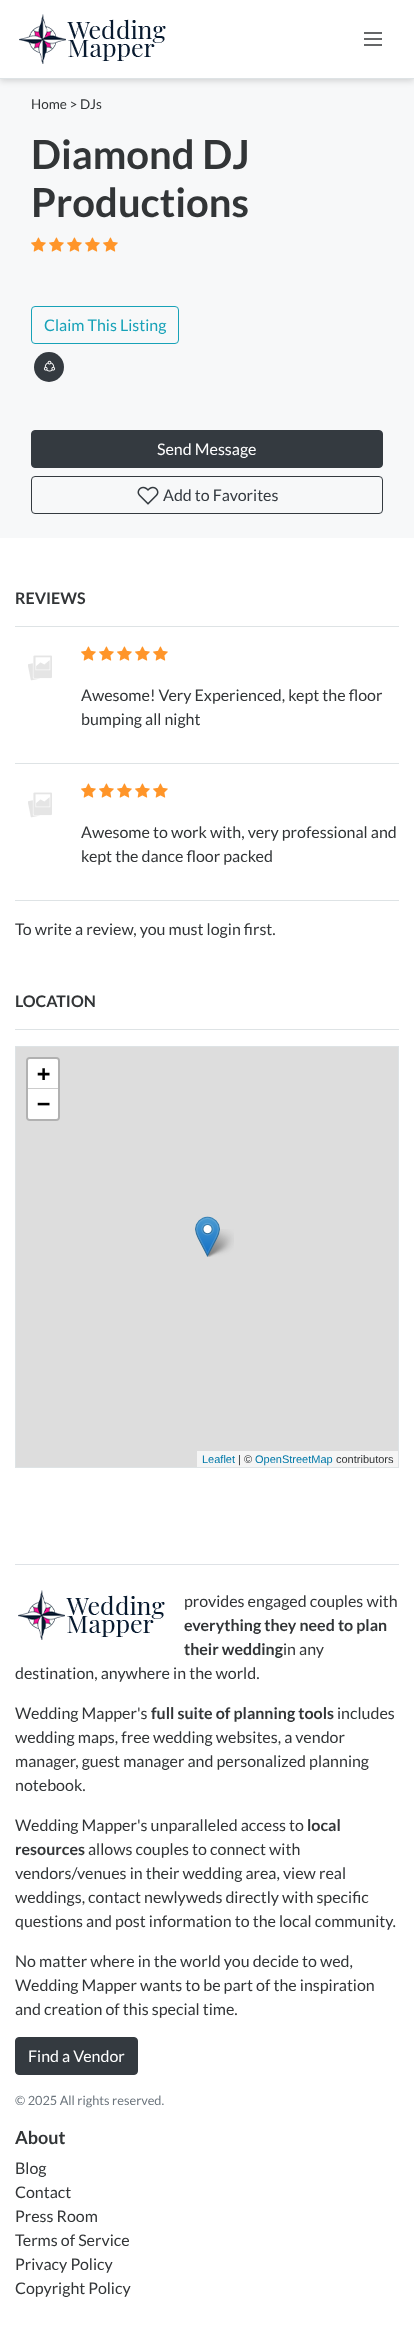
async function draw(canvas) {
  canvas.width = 414;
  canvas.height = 2331;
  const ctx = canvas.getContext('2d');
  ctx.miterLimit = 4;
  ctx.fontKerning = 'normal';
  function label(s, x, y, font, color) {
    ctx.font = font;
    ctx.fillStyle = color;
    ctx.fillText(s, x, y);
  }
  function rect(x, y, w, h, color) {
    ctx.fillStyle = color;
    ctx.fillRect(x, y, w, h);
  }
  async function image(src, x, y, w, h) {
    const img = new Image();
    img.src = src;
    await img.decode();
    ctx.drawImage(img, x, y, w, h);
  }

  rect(0, 0, 414, 2331, '#fff');
  rect(0, 79, 414, 459, '#f7f8f9');
  ctx.fillStyle = '#00000026';
  ctx.filter = 'blur(3px)';
  ctx.beginPath();
  ctx.rect(0, 2, 414, 79);
  ctx.fill();
  ctx.filter = 'none';
  rect(0, 0, 414, 78, '#fff');
  rect(0, 78, 414, 1, '#dee3e5');
  await image('assets/img1.png', 19, 14, 147, 50);
  await image('assets/img2.png', 364, 32, 18, 14);
  label('Home > DJs', 31, 109, '13.5px Lato', '#323537');
  label('Diamond DJ', 31, 169, 'bold 40px Lato', '#323537');
  label('Productions', 31, 217, 'bold 40px Lato', '#323537');
  await image('assets/img3.png', 31, 237, 15, 15);
  await image('assets/img3.png', 49, 237, 15, 15);
  await image('assets/img3.png', 67, 237, 15, 15);
  await image('assets/img3.png', 85, 237, 15, 15);
  await image('assets/img3.png', 103, 237, 15, 15);
  ctx.beginPath();
  ctx.roundRect(31.5, 306.5, 147, 37, 3.5);
  ctx.strokeStyle = '#17a2b8';
  ctx.stroke();
  label('Claim This Listing', 44, 331, '16px Lato', '#17a2b8');
  ctx.fillStyle = '#343a40';
  ctx.beginPath();
  ctx.arc(49, 367, 15, 0, 2 * Math.PI);
  ctx.fill();
  await image('assets/img4.png', 43, 360, 13, 12);
  ctx.beginPath();
  ctx.roundRect(31.5, 430.5, 351, 37, 3.5);
  ctx.fill();
  ctx.strokeStyle = '#343a40';
  ctx.stroke();
  label('Send Message', 157, 455, '16px Lato', '#fff');
  ctx.beginPath();
  ctx.roundRect(31.5, 476.5, 351, 37, 3.5);
  ctx.stroke();
  await image('assets/img5.png', 137, 486, 22, 19);
  label('Add to Favorites', 163, 501, '16px Lato', '#343a40');
  label('REVIEWS', 15, 604, 'bold 16px Lato', '#323537');
  rect(15, 626, 384, 1, '#dee3e5');
  await image('assets/img6.png', 28, 655, 24, 26);
  await image('assets/img7.png', 81, 646, 15, 15);
  await image('assets/img7.png', 99, 646, 15, 15);
  await image('assets/img7.png', 117, 646, 15, 15);
  await image('assets/img7.png', 135, 646, 15, 15);
  await image('assets/img7.png', 153, 646, 15, 15);
  label('Awesome! Very Experienced, kept the floor', 81, 701, '16px Lato', '#323537');
  label('bumping all night', 81, 725, '16px Lato', '#323537');
  rect(15, 763, 384, 1, '#dee3e5');
  await image('assets/img6.png', 28, 792, 24, 26);
  await image('assets/img7.png', 81, 783, 15, 15);
  await image('assets/img7.png', 99, 783, 15, 15);
  await image('assets/img7.png', 117, 783, 15, 15);
  await image('assets/img7.png', 135, 783, 15, 15);
  await image('assets/img7.png', 153, 783, 15, 15);
  label('Awesome to work with, very professional and', 81, 838, '16px Lato', '#323537');
  label('kept the dance floor packed', 81, 862, '16px Lato', '#323537');
  rect(15, 900, 384, 1, '#dee3e5');
  label('To write a review, you must login first.', 15, 935, '16px Lato', '#323537');
  label('LOCATION', 15, 1007, 'bold 16px Lato', '#323537');
  rect(15, 1029, 384, 1, '#dee3e5');
  ctx.strokeStyle = '#dee3e5';
  ctx.strokeRect(15.5, 1046.5, 383, 421);
  rect(16, 1047, 382, 420, '#ddd');
  ctx.beginPath();
  ctx.roundRect(27, 1058, 32, 62, 3);
  ctx.strokeStyle = '#b1b1b1';
  ctx.lineWidth = 2;
  ctx.stroke();
  ctx.fillStyle = '#fff';
  ctx.beginPath();
  ctx.roundRect(28, 1059, 30, 30, [2, 2, 0, 0]);
  ctx.fill();
  rect(28, 1088, 30, 1, '#ccc');
  label('+', 37, 1081, 'bold 22px DejaVu Sans Mono', '#000');
  ctx.fillStyle = '#fff';
  ctx.beginPath();
  ctx.roundRect(28, 1089, 30, 30, [0, 0, 2, 2]);
  ctx.fill();
  label('−', 37, 1111, 'bold 22px DejaVu Sans Mono', '#000');
  rect(197, 1451, 201, 16, '#f5f5f5');
  label('Leaflet', 202, 1463, '11px Liberation Sans', '#0078a8');
  label('| ©', 238, 1463, '11px Liberation Sans', '#323537');
  label('OpenStreetMap', 255, 1463, '11px Liberation Sans', '#0078a8');
  label('contributors', 336, 1463, '11px Liberation Sans', '#323537');
  await image('assets/img9.png', 205, 1229, 29, 28);
  await image('assets/img8.png', 195, 1216, 25, 41);
  rect(15, 1564, 384, 1, '#dee2e6');
  await image('assets/img1.png', 18, 1590, 147, 50);
  label('provides engaged couples with', 184, 1607, '16px Lato', '#323537');
  label('everything they need to plan', 184, 1631, 'bold 16px Lato', '#323537');
  label('their wedding', 184, 1655, 'bold 16px Lato', '#323537');
  label('in any', 283, 1655, '16px Lato', '#323537');
  label('destination, anywhere in the world.', 15, 1679, '16px Lato', '#323537');
  label('Wedding Mapper\'s', 15, 1719, '16px Lato', '#323537');
  label('full suite of planning tools', 151, 1719, 'bold 16px Lato', '#323537');
  label('includes', 337, 1719, '16px Lato', '#323537');
  label('wedding maps, free wedding websites, a vendor', 15, 1743, '16px Lato', '#323537');
  label('manager, guest manager and personalized planning', 15, 1767, '16px Lato', '#323537');
  label('notebook.', 15, 1791, '16px Lato', '#323537');
  label('Wedding Mapper\'s unparalleled access to', 15, 1831, '16px Lato', '#323537');
  label('local', 307, 1831, 'bold 16px Lato', '#323537');
  label('resources', 15, 1855, 'bold 16px Lato', '#323537');
  label('allows couples to connect with', 88, 1855, '16px Lato', '#323537');
  label('vendors/venues in their wedding area, view real', 15, 1879, '16px Lato', '#323537');
  label('weddings, contact newlyweds directly with specific', 15, 1903, '16px Lato', '#323537');
  label('questions and post information to the local community.', 15, 1927, '16px Lato', '#323537');
  label('No matter where in the world you decide to wed,', 15, 1967, '16px Lato', '#323537');
  label('Wedding Mapper wants to be part of the inspiration', 15, 1991, '16px Lato', '#323537');
  label('and creation of this special time.', 15, 2015, '16px Lato', '#323537');
  ctx.fillStyle = '#343a40';
  ctx.beginPath();
  ctx.roundRect(15.5, 2037.5, 122, 37, 3.5);
  ctx.fill();
  ctx.strokeStyle = '#343a40';
  ctx.lineWidth = 1;
  ctx.stroke();
  label('Find a Vendor', 28, 2062, '16px Lato', '#fff');
  label('© 2025 All rights reserved.', 15, 2105, '12.75px Lato', '#6c757d');
  label('About', 15, 2144, 'bold 18px Lato', '#323537');
  label('Blog', 15, 2174, '16px Lato', '#323537');
  label('Contact', 15, 2198, '16px Lato', '#323537');
  label('Press Room', 15, 2222, '16px Lato', '#323537');
  label('Terms of Service', 15, 2246, '16px Lato', '#323537');
  label('Privacy Policy', 15, 2270, '16px Lato', '#323537');
  label('Copyright Policy', 15, 2294, '16px Lato', '#323537');
}

draw(document.querySelector('canvas'));
